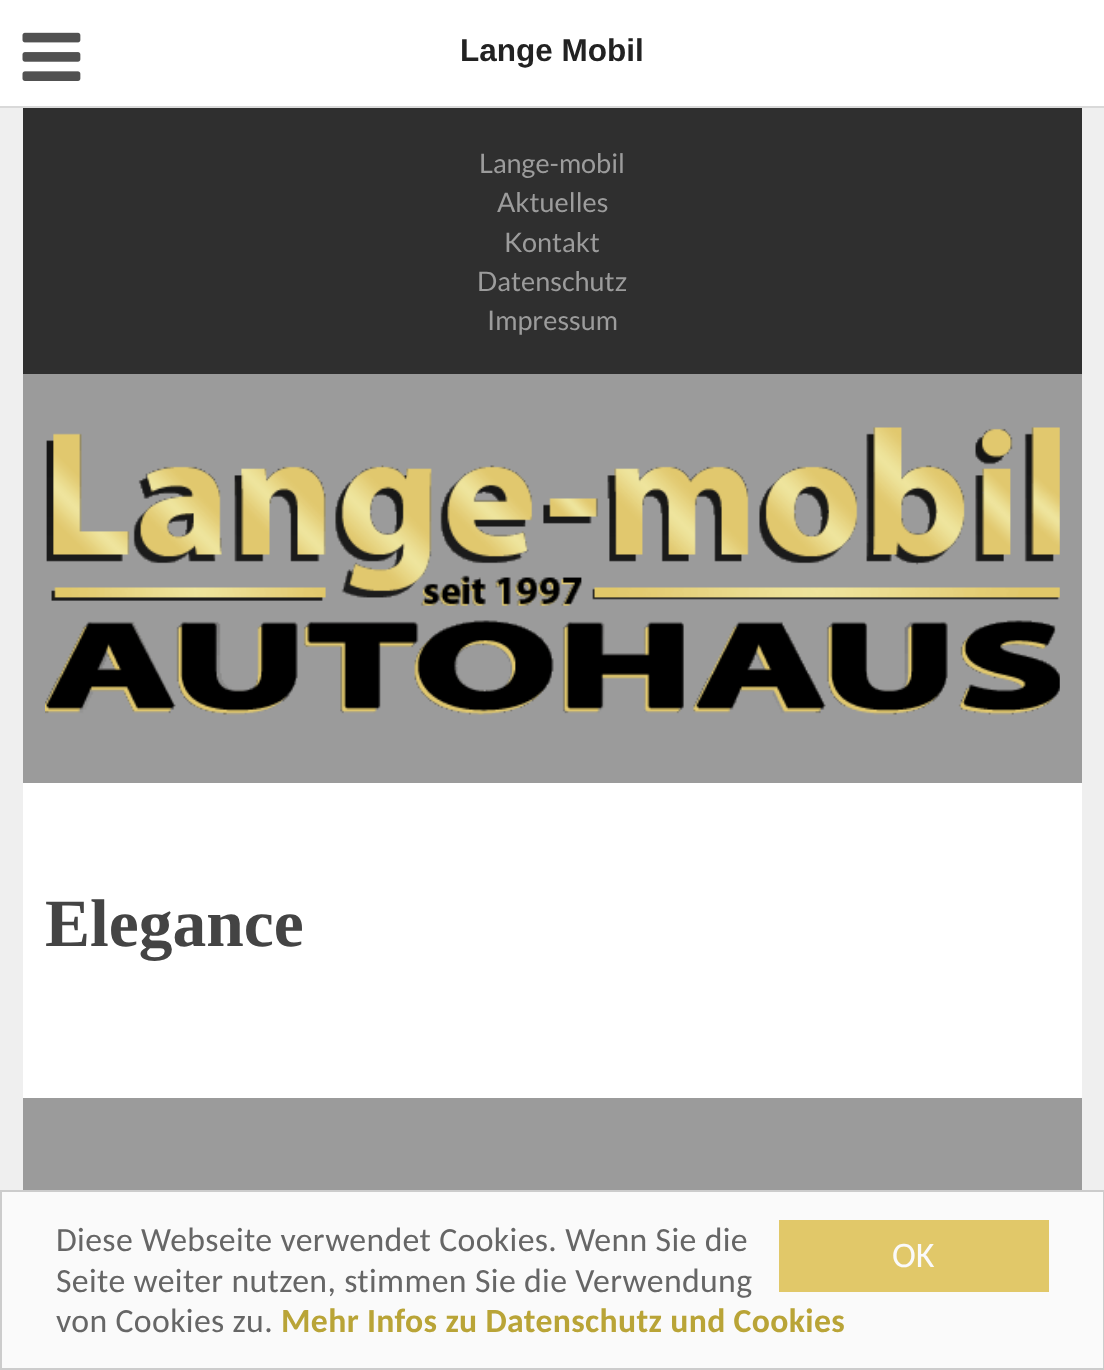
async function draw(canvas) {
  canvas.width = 1104;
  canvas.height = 1370;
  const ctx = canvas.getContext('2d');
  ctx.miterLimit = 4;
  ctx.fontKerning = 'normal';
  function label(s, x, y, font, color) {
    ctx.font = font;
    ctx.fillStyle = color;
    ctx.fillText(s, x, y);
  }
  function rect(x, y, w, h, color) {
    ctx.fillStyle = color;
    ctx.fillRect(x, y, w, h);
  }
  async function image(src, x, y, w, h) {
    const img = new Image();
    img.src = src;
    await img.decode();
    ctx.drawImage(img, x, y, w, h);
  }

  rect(0, 0, 1104, 1370, '#efefef');
  rect(0, 0, 1104, 106, '#fff');
  rect(0, 106, 1104, 2, '#d9d9d9');
  await image('assets/img1.png', 22, 32, 59, 49);
  label('Lange Mobil', 460, 61, 'bold 31.5px Liberation Sans', '#222');
  rect(23, 108, 1059, 266, '#2f2f2f');
  label('Lange-mobil', 479, 173, '27px Lato', '#9c9c9c');
  label('Aktuelles', 497, 212, '27px Lato', '#9c9c9c');
  label('Kontakt', 504, 252, '27px Lato', '#9c9c9c');
  label('Datenschutz', 477, 291, '27px Lato', '#9c9c9c');
  label('Impressum', 487, 330, '27px Lato', '#9c9c9c');
  rect(23, 374, 1059, 409, '#9b9b9b');
  await image('assets/img2.png', 45, 427, 1015, 288);
  rect(23, 783, 1059, 315, '#fff');
  label('Elegance', 45, 946, 'bold 67.5px Tinos', '#444');
  rect(23, 1098, 1059, 92, '#9b9b9b');
  ctx.fillStyle = '#fafafa';
  ctx.beginPath();
  ctx.rect(1, 1191, 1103, 178);
  ctx.fill();
  ctx.strokeStyle = '#ccc';
  ctx.lineWidth = 2;
  ctx.stroke();
  ctx.letterSpacing = '0.35px';
  label('Diese Webseite verwendet Cookies. Wenn Sie die', 56, 1251, '33.75px Carlito', '#666');
  label('Seite weiter nutzen, stimmen Sie die Verwendung', 56, 1292, '33.75px Carlito', '#666');
  label('von Cookies zu.', 56, 1332, '33.75px Carlito', '#666');
  label('Mehr Infos zu Datenschutz und Cookies', 281, 1332, 'bold 33.75px Carlito', '#b9a437');
  rect(779, 1220, 270, 72, '#e1c869');
  ctx.letterSpacing = '0px';
  label('OK', 892, 1267, '36px Carlito', '#fafafa');
}

draw(document.querySelector('canvas'));
